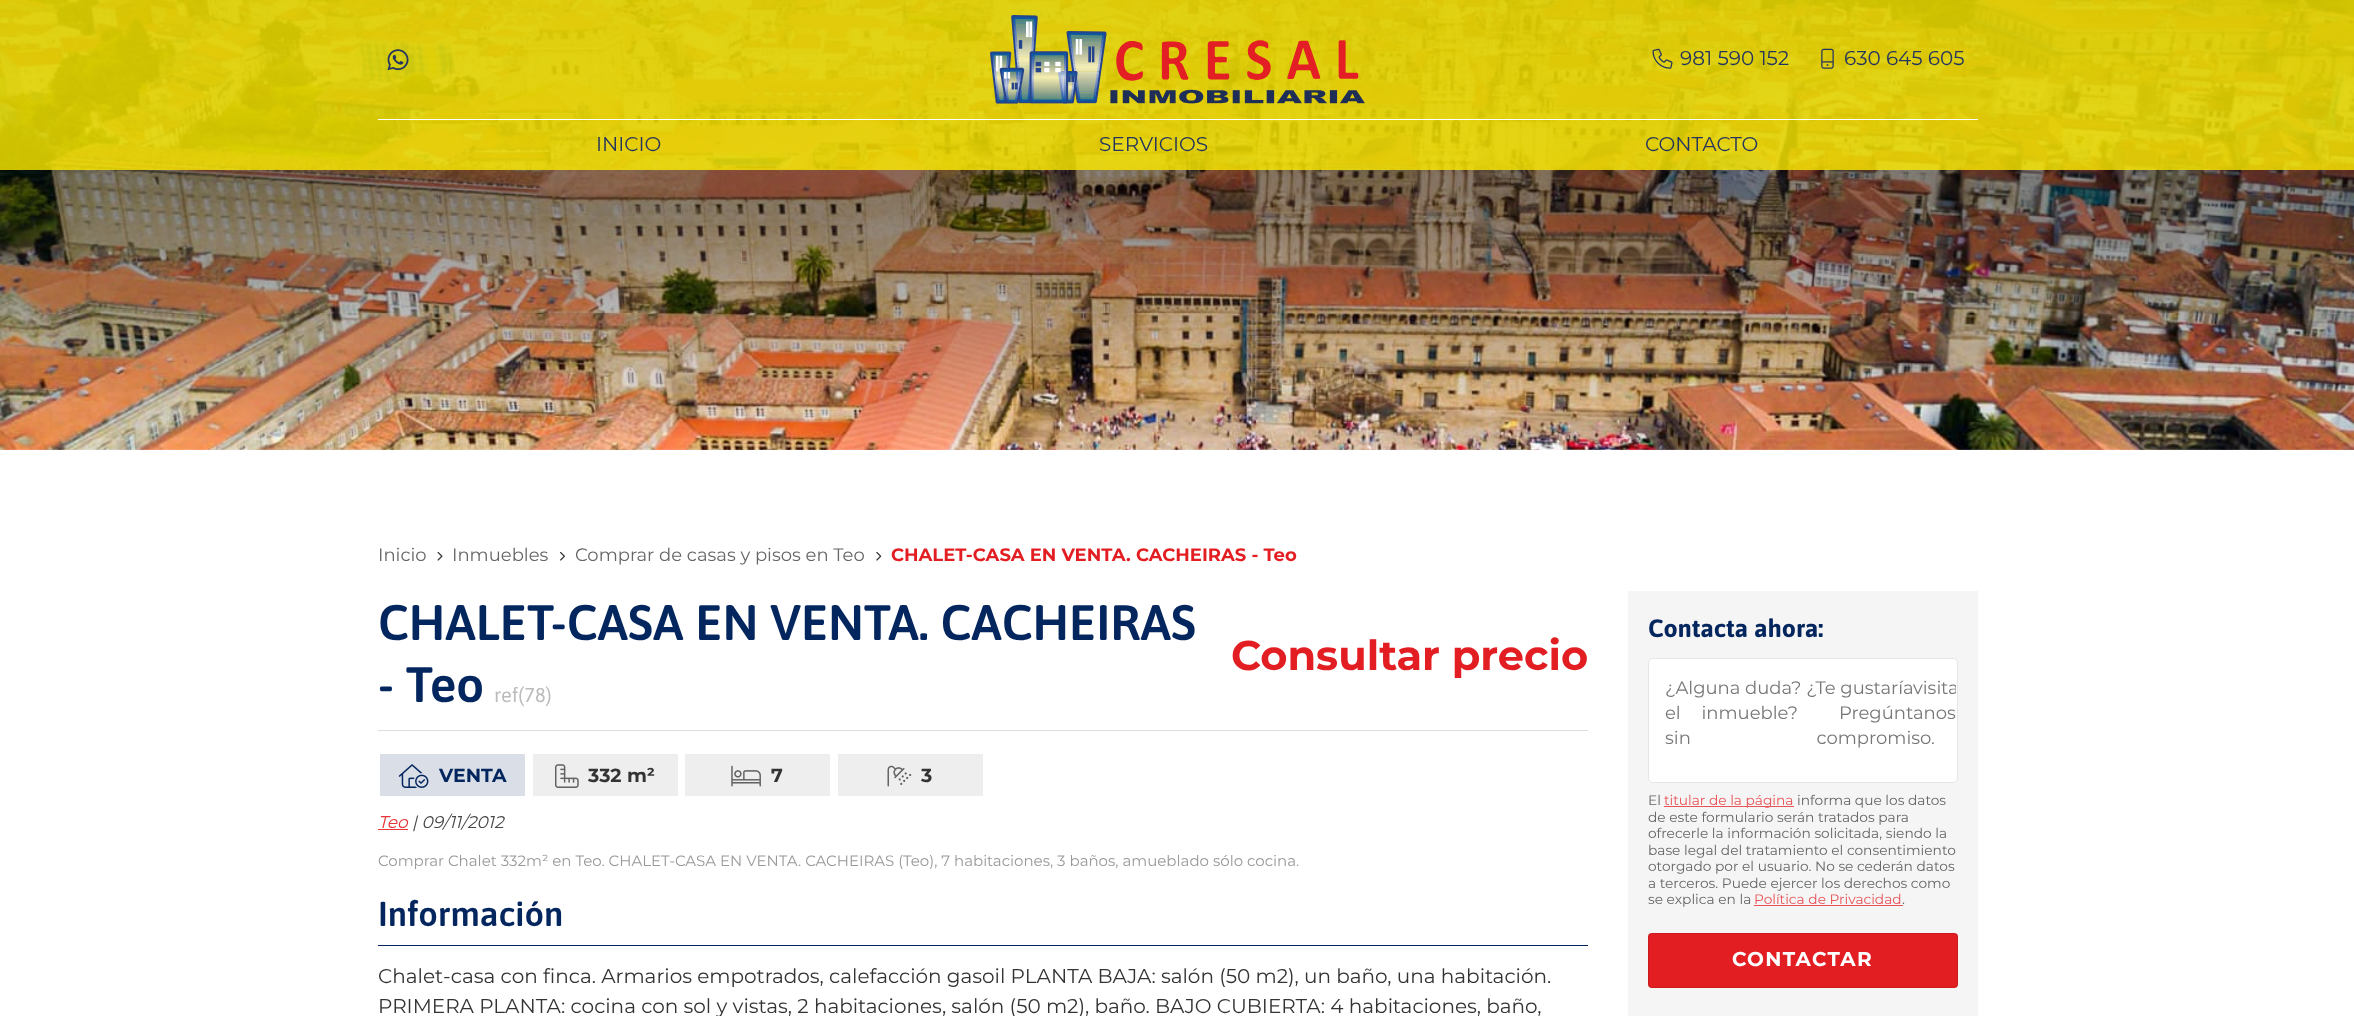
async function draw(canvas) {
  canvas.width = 2354;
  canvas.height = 1016;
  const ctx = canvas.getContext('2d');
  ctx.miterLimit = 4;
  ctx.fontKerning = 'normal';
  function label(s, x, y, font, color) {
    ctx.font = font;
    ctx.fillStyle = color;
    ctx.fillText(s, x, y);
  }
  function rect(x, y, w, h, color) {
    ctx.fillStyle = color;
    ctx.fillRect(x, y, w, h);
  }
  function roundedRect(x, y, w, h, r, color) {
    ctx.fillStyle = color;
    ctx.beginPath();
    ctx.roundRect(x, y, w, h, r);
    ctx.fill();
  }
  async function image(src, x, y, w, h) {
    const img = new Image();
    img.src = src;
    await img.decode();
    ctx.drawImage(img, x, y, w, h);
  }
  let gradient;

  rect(0, 0, 2354, 1016, '#fff');
  await image('assets/img5.png', 0, 0, 2354, 450);
  gradient = ctx.createLinearGradient(1178, 0, 1178, 450);
  gradient.addColorStop(0, '#00000099');
  gradient.addColorStop(0.5, '#00000066');
  gradient.addColorStop(1, '#00000000');
  ctx.fillStyle = gradient;
  ctx.fillRect(0, 0, 2354, 438);
  rect(0, 0, 2354, 170, '#ffed00cc');
  await image('assets/img1.png', 387, 49, 22, 22);
  await image('assets/img2.png', 990, 15, 375, 89);
  await image('assets/img3.png', 1652, 48, 21, 21);
  label('981 590 152', 1680, 65, '20px Montserrat', '#23345e');
  await image('assets/img4.png', 1821, 48, 13, 21);
  label('630 645 605', 1844, 65, '20px Montserrat', '#23345e');
  rect(378, 119, 1600, 1, '#fff');
  label('INICIO', 596, 151, '20px Montserrat', '#23345e');
  label('SERVICIOS', 1099, 151, '20px Montserrat', '#23345e');
  label('CONTACTO', 1645, 151, '20px Montserrat', '#23345e');
  label('Inicio', 378, 561, '18px Montserrat', '#666');
  await image('assets/img6.png', 437, 551, 6, 10);
  label('Inmuebles', 452, 561, '18px Montserrat', '#666');
  await image('assets/img7.png', 560, 551, 5, 10);
  label('Comprar de casas y pisos en Teo', 575, 561, '18px Montserrat', '#666');
  await image('assets/img8.png', 876, 551, 6, 10);
  label('CHALET-CASA EN VENTA. CACHEIRAS - Teo', 891, 561, 'bold 18px Montserrat', '#e31e23');
  rect(378, 730, 1210, 1, '#ddd');
  label('CHALET-CASA EN VENTA. CACHEIRAS', 378, 640, '600 49.75px Asap', '#04265e');
  label('- Teo', 378, 702, '600 49.75px Asap', '#04265e');
  label('ref(78)', 494, 702, '20px Asap', '#bbb');
  label('Consultar precio', 1231, 670, 'bold 41.5px Montserrat', '#e31e23');
  rect(380, 754, 145, 42, '#d9dee7');
  await image('assets/img9.png', 398, 764, 31, 24);
  label('VENTA', 439, 782, 'bold 19px Montserrat', '#04265e');
  rect(533, 754, 145, 42, '#eee');
  await image('assets/img10.png', 555, 764, 24, 24);
  label('332 m²', 588, 782, 'bold 19px Montserrat', '#333');
  rect(685, 754, 145, 42, '#eee');
  await image('assets/img11.png', 731, 765, 30, 22);
  label('7', 771, 782, 'bold 19px Montserrat', '#333');
  rect(838, 754, 145, 42, '#eee');
  await image('assets/img12.png', 887, 765, 25, 22);
  label('3', 921, 782, 'bold 19px Montserrat', '#333');
  label('Teo', 378, 828, 'italic 17px Montserrat', '#e63539');
  rect(378, 829, 30, 1, '#e63539');
  label('| 09/11/2012', 412, 828, 'italic 17px Montserrat', '#474747');
  label('Comprar Chalet 332m² en Teo. CHALET-CASA EN VENTA. CACHEIRAS (Teo), 7 habitaciones, 3 baños, amueblado sólo cocina.', 378, 866, '15px Montserrat', '#999');
  rect(378, 945, 1210, 1, '#04265e');
  label('Información', 378, 926, '600 34.5px Asap', '#04265e');
  label('Chalet-casa con finca. Armarios empotrados, calefacción gasoil PLANTA BAJA: salón (50 m2), un baño, una habitación.', 378, 983, '20px Montserrat', '#333');
  label('PRIMERA PLANTA: cocina con sol y vistas, 2 habitaciones, salón (50 m2), baño. BAJO CUBIERTA: 4 habitaciones, baño,', 378, 1013, '20px Montserrat', '#333');
  rect(1628, 591, 350, 425, '#f5f5f5');
  label('Contacta ahora:', 1648, 637, 'bold 25px Asap', '#04265e');
  roundedRect(1648, 658, 310, 125, 5, '#fff');
  ctx.beginPath();
  ctx.roundRect(1648.5, 658.5, 309, 124, 4.5);
  ctx.strokeStyle = '#0000001a';
  ctx.stroke();
  label('¿Alguna duda? ¿Te gustaría', 1665, 694, '18px Montserrat', '#777');
  ctx.save();
  ctx.beginPath();
  ctx.roundRect(1649, 659, 307, 122, 4);
  ctx.clip();
  label('visita', 1913, 694, '18px Montserrat', '#777');
  ctx.restore();
  ctx.wordSpacing = '16px';
  label('el inmueble?', 1665, 719, '18px Montserrat', '#777');
  ctx.wordSpacing = '0px';
  label('Pregúntanos', 1839, 719, '18px Montserrat', '#777');
  ctx.wordSpacing = '121px';
  label('sin compromiso.', 1665, 744, '18px Montserrat', '#777');
  ctx.wordSpacing = '0px';
  label('El', 1648, 805, '13.75px Montserrat', '#666');
  rect(1664, 806, 130, 1, '#e85458');
  label('titular de la página', 1664, 805, '13.75px Montserrat', '#e85458');
  label('informa que los datos', 1797, 805, '13.75px Montserrat', '#666');
  label('de este formulario serán tratados para', 1648, 822, '13.75px Montserrat', '#666');
  label('ofrecerle la información solicitada, siendo la', 1648, 838, '13.75px Montserrat', '#666');
  label('base legal del tratamiento el consentimiento', 1648, 855, '13.75px Montserrat', '#666');
  label('otorgado por el usuario. No se cederán datos', 1648, 871, '13.75px Montserrat', '#666');
  label('a terceros. Puede ejercer los derechos como', 1648, 888, '13.75px Montserrat', '#666');
  label('se explica en la', 1648, 904, '13.75px Montserrat', '#666');
  label('Política de Privacidad', 1754, 904, '13.75px Montserrat', '#e85458');
  rect(1754, 905, 149, 1, '#e85458');
  label('.', 1902, 904, '13.75px Montserrat', '#666');
  roundedRect(1648, 933, 310, 55, 4, '#e31e23');
  ctx.beginPath();
  ctx.roundRect(1648.5, 933.5, 309, 54, 3.5);
  ctx.stroke();
  ctx.letterSpacing = '1.25px';
  label('CONTACTAR', 1732, 966, 'bold 20px Montserrat', '#fff');
}

draw(document.querySelector('canvas'));
